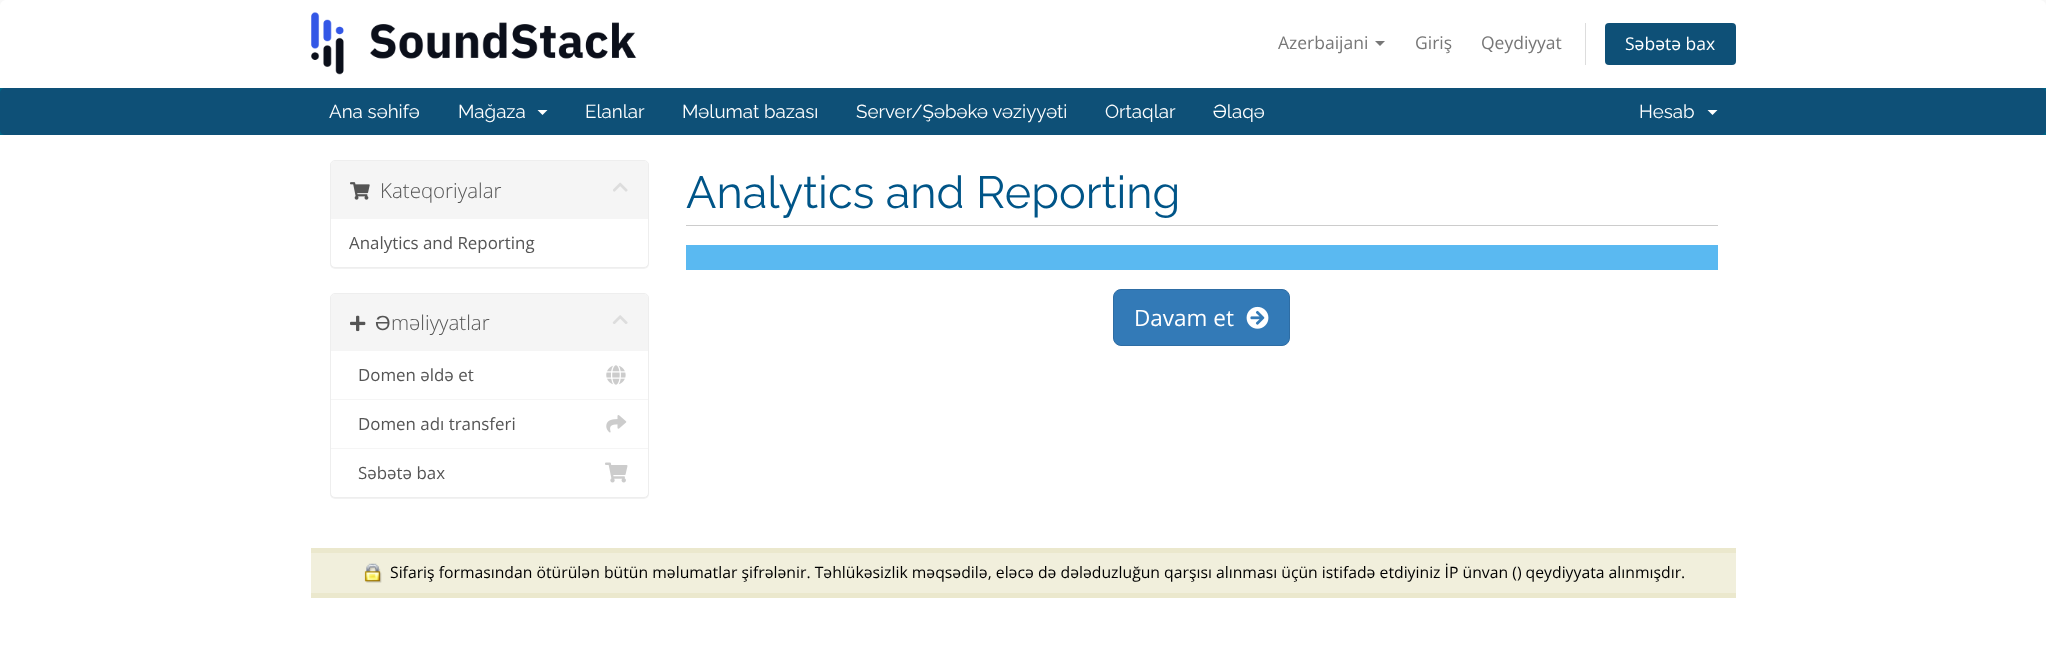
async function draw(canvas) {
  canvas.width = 2046;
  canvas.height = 652;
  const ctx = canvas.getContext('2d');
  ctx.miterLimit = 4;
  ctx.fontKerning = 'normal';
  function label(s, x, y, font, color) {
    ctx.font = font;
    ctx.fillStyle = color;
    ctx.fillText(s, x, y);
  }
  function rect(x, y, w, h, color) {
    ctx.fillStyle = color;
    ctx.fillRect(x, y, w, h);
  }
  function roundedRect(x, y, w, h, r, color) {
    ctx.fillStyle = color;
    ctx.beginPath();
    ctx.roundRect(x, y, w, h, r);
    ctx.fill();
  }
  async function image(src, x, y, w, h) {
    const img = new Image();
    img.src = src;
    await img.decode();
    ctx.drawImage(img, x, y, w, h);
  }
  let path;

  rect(0, 0, 2046, 652, '#f8f8f8');
  ctx.fillStyle = '#fff';
  ctx.beginPath();
  ctx.roundRect(0, 0, 2046, 88, [6, 6, 0, 0]);
  ctx.fill();
  await image('assets/img1.png', 311, 12, 326, 63);
  label('Azerbaijani', 1278, 49, '17.5px Open Sans', '#777');
  path = new Path2D('M1375 41H1385L1380 46Z');
  ctx.fill(path);
  label('Giriş', 1415, 49, '17.5px Open Sans', '#777');
  label('Qeydiyyat', 1481, 49, '17.5px Open Sans', '#777');
  rect(1585, 23, 1, 42, '#ddd');
  roundedRect(1605, 23, 131, 42, 4, '#0e5077');
  label('Səbətə bax', 1625, 50, '17.5px Open Sans', '#fff');
  rect(0, 88, 2046, 47, '#006687');
  roundedRect(0, 88, 2046, 47, 5, '#0e5077');
  label('Ana səhifə', 329, 118, '18.75px Raleway', '#fff');
  label('Mağaza', 458, 118, '18.75px Raleway', '#fff');
  path = new Path2D('M537.5 110H547.5L542.5 115Z');
  ctx.fill(path);
  label('Elanlar', 585, 118, '18.75px Raleway', '#fff');
  label('Məlumat bazası', 682, 118, '18.75px Raleway', '#fff');
  label('Server/Şəbəkə vəziyyəti', 856, 118, '18.75px Raleway', '#fff');
  label('Ortaqlar', 1105, 118, '18.75px Raleway', '#fff');
  label('Əlaqə', 1213, 118, '18.75px Raleway', '#fff');
  label('Hesab', 1639, 118, '18.75px Raleway', '#fff');
  path = new Path2D('M1707.5 110H1717.5L1712.5 115Z');
  ctx.fill(path);
  rect(0, 135, 2046, 517, '#fff');
  ctx.fillStyle = '#0000000d';
  ctx.filter = 'blur(0.5px)';
  ctx.beginPath();
  ctx.roundRect(330, 161, 319, 108, 5);
  ctx.fill();
  ctx.filter = 'none';
  ctx.fillStyle = '#fff';
  ctx.beginPath();
  ctx.roundRect(330.5, 160.5, 318, 107, 4.5);
  ctx.fill();
  ctx.strokeStyle = '#eee';
  ctx.stroke();
  ctx.fillStyle = '#f5f5f5';
  ctx.beginPath();
  ctx.roundRect(331, 161, 317, 58, [4, 4, 0, 0]);
  ctx.fill();
  await image('assets/img2.png', 350, 182, 20, 18);
  label('Kateqoriyalar', 380, 198, '300 20.5px Open Sans', '#555');
  await image('assets/img3.png', 613, 182, 15, 10);
  label('Analytics and Reporting', 349, 249, '16.9px Open Sans', '#555');
  ctx.fillStyle = '#0000000d';
  ctx.filter = 'blur(0.5px)';
  ctx.beginPath();
  ctx.roundRect(330, 294, 319, 205, 5);
  ctx.fill();
  ctx.filter = 'none';
  ctx.fillStyle = '#fff';
  ctx.beginPath();
  ctx.roundRect(330.5, 293.5, 318, 204, 4.5);
  ctx.fill();
  ctx.stroke();
  ctx.fillStyle = '#f5f5f5';
  ctx.beginPath();
  ctx.roundRect(331, 294, 317, 57, [4, 4, 0, 0]);
  ctx.fill();
  await image('assets/img4.png', 350, 315, 16, 17);
  label('Ə', 375, 330, '20.5px Liberation Sans', '#555');
  label('məliyyatlar', 391, 330, '300 20.5px Open Sans', '#555');
  await image('assets/img5.png', 612, 315, 16, 9);
  rect(331, 399, 317, 1, '#f5f5f5');
  label('Domen əldə et', 358, 381, '16.9px Open Sans', '#555');
  await image('assets/img6.png', 606, 365, 20, 20);
  label('Domen adı transferi', 358, 430, '16.9px Open Sans', '#555');
  await image('assets/img7.png', 606, 415, 21, 18);
  rect(331, 448, 317, 1, '#f5f5f5');
  label('Səbətə bax', 358, 479, '16.9px Open Sans', '#555');
  await image('assets/img8.png', 605, 462, 23, 21);
  rect(686, 225, 1032, 1, '#ccc');
  label('Analytics and Reporting', 686, 208, '45px Raleway', '#058');
  rect(686, 245, 1032, 25, '#5ab9f1');
  ctx.fillStyle = '#337ab7';
  ctx.beginPath();
  ctx.roundRect(1113.5, 289.5, 176, 56, 7.5);
  ctx.fill();
  ctx.strokeStyle = '#2e6da4';
  ctx.stroke();
  label('Davam et', 1134, 326, '22.5px Open Sans', '#fff');
  await image('assets/img9.png', 1246, 306, 23, 23);
  rect(311, 553, 1425, 40, '#f1efdc');
  rect(311, 548, 1425, 5, '#ebe8cd');
  rect(311, 593, 1425, 5, '#ebe8cd');
  await image('assets/img10.png', 364, 563, 18, 20);
  label('Sifariş formasından ötürülən bütün məlumatlar şifrələnir. Təhlükəsizlik məqsədilə, eləcə də dələduzluğun qarşısı alınması üçün istifadə etdiyiniz İP ünvan () qeydiyyata alınmışdır.', 390, 578, '15.75px Open Sans', '#000');
}

draw(document.querySelector('canvas'));
